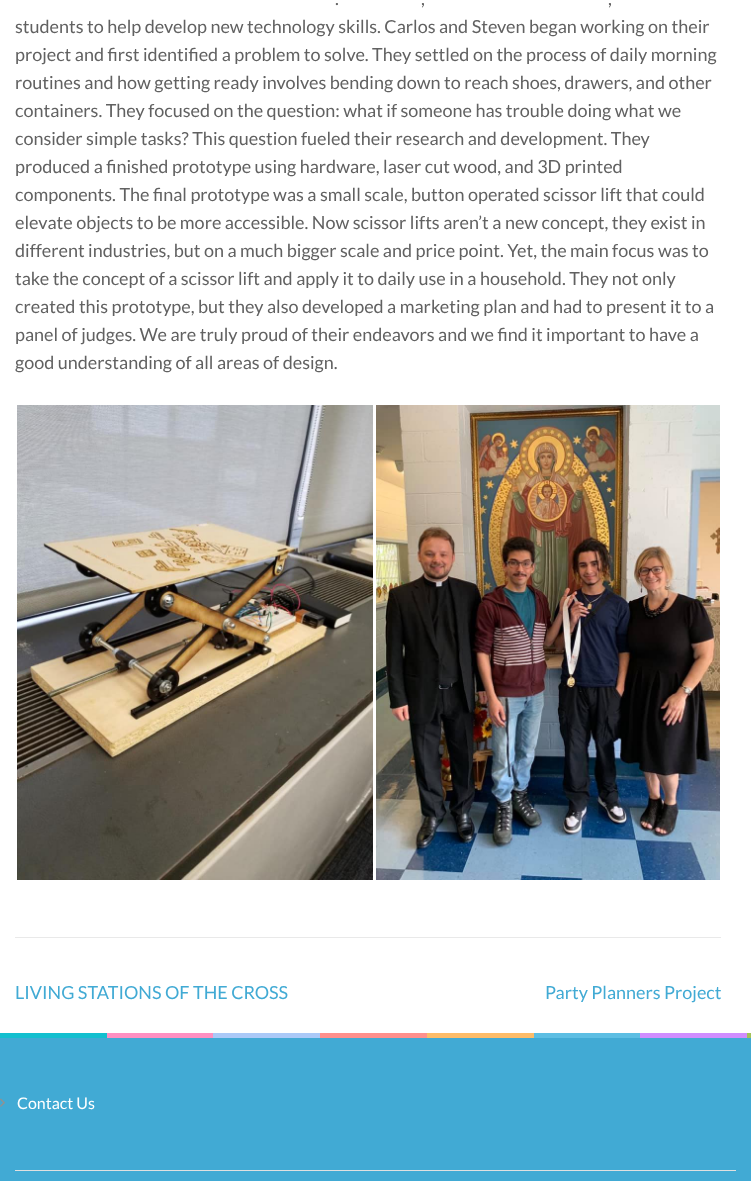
async function draw(canvas) {
  canvas.width = 751;
  canvas.height = 1181;
  const ctx = canvas.getContext('2d');
  ctx.miterLimit = 4;
  ctx.fontKerning = 'normal';
  function label(s, x, y, font, color) {
    ctx.font = font;
    ctx.fillStyle = color;
    ctx.fillText(s, x, y);
  }
  function rect(x, y, w, h, color) {
    ctx.fillStyle = color;
    ctx.fillRect(x, y, w, h);
  }
  async function image(src, x, y, w, h) {
    const img = new Image();
    img.src = src;
    await img.decode();
    ctx.drawImage(img, x, y, w, h);
  }

  rect(0, 0, 751, 1181, '#fff');
  rect(15, 937, 706, 1, '#e9e9e9');
  label('.', 335, 5, '18px Lato', '#616161');
  label(',', 421, 5, '18px Lato', '#616161');
  label(',', 608, 5, '18px Lato', '#616161');
  label('students to help develop new technology skills. Carlos and Steven began working on their', 15, 33, '18px Lato', '#616161');
  label('project and first identified a problem to solve. They settled on the process of daily morning', 15, 61, '18px Lato', '#616161');
  label('routines and how getting ready involves bending down to reach shoes, drawers, and other', 15, 89, '18px Lato', '#616161');
  label('containers. They focused on the question: what if someone has trouble doing what we', 15, 117, '18px Lato', '#616161');
  label('consider simple tasks? This question fueled their research and development. They', 15, 145, '18px Lato', '#616161');
  label('produced a finished prototype using hardware, laser cut wood, and 3D printed', 15, 173, '18px Lato', '#616161');
  label('components. The final prototype was a small scale, button operated scissor lift that could', 15, 201, '18px Lato', '#616161');
  label('elevate objects to be more accessible. Now scissor lifts aren’t a new concept, they exist in', 15, 229, '18px Lato', '#616161');
  label('different industries, but on a much bigger scale and price point. Yet, the main focus was to', 15, 257, '18px Lato', '#616161');
  label('take the concept of a scissor lift and apply it to daily use in a household. They not only', 15, 285, '18px Lato', '#616161');
  label('created this prototype, but they also developed a marketing plan and had to present it to a', 15, 313, '18px Lato', '#616161');
  label('panel of judges. We are truly proud of their endeavors and we find it important to have a', 15, 341, '18px Lato', '#616161');
  label('good understanding of all areas of design.', 15, 369, '18px Lato', '#616161');
  await image('assets/img1.png', 17, 405, 356, 475);
  await image('assets/img2.png', 376, 405, 344, 475);
  label('LIVING STATIONS OF THE CROSS', 15, 999, '18px Lato', '#41aad4');
  label('Party Planners Project', 545, 999, '18px Lato', '#41aad4');
  rect(0, 1038, 751, 143, '#41aad4');
  await image('assets/img3.png', 0, 1033, 751, 5);
  rect(15, 1170, 721, 1, '#e0e0e0');
  await image('assets/img4.png', 0, 1098, 5, 9);
  label('Contact Us', 17, 1109, '16px Lato', '#fff');
}

draw(document.querySelector('canvas'));
